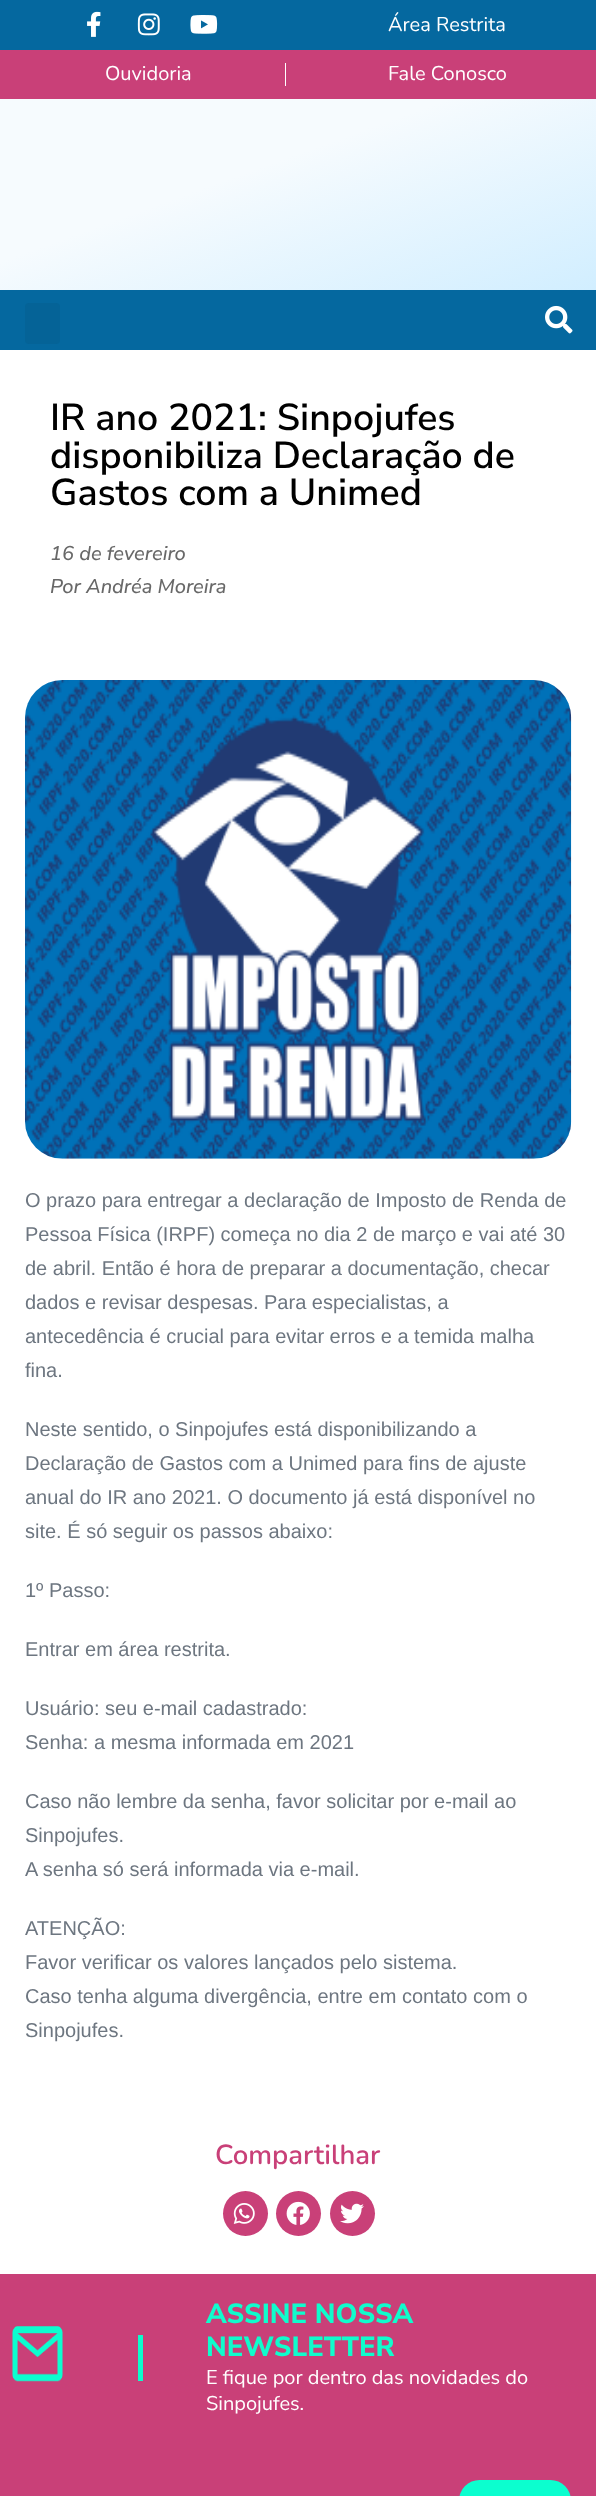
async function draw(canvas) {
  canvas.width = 596;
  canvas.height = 2496;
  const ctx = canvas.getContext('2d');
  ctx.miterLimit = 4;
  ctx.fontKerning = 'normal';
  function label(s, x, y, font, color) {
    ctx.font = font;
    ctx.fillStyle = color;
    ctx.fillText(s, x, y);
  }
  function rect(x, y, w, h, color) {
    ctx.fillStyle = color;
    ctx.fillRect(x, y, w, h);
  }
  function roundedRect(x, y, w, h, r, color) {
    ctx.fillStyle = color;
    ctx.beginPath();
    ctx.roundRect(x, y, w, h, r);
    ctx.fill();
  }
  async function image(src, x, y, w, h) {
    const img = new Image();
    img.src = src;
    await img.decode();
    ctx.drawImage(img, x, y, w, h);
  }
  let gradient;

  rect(0, 0, 596, 2496, '#fff');
  rect(0, 0, 596, 50, '#05689f');
  await image('assets/img1.png', 87, 11, 14, 26);
  await image('assets/img2.png', 137, 13, 23, 23);
  await image('assets/img3.png', 190, 15, 28, 19);
  label('Área Restrita', 388, 31, '20px Nunito', '#fff');
  rect(0, 50, 596, 49, '#c94078');
  rect(285, 63, 1, 23, '#fff');
  label('Ouvidoria', 105, 80, '20px Nunito', '#fff');
  label('Fale Conosco', 388, 80, '20px Nunito', '#fff');
  gradient = ctx.createLinearGradient(233, 14, 364, 375);
  gradient.addColorStop(0.4, '#f6fbfe');
  gradient.addColorStop(1, '#d1eeff');
  ctx.fillStyle = gradient;
  ctx.fillRect(0, 99, 596, 191);
  rect(0, 290, 596, 60, '#05689f');
  roundedRect(25, 303, 35, 41, 4, '#056397');
  await image('assets/img4.png', 545, 305, 28, 29);
  label('IR ano 2021: Sinpojufes', 50, 430, '600 37.5px Nunito Sans', '#000');
  label('disponibiliza Declaração de', 50, 468, '600 37.5px Nunito Sans', '#000');
  label('Gastos com a Unimed', 50, 505, '600 37.5px Nunito Sans', '#000');
  label('16 de fevereiro', 50, 560, 'italic 500 20px Nunito Sans', '#686868');
  label('Por Andréa Moreira', 50, 593, 'italic 500 20px Nunito Sans', '#686868');
  await image('assets/img5.png', 25, 680, 547, 479);
  label('O prazo para entregar a declaração de Imposto de Renda de', 25, 1207, '20px Liberation Sans', '#6d7680');
  label('Pessoa Física (IRPF) começa no dia 2 de março e vai até 30', 25, 1241, '20px Liberation Sans', '#6d7680');
  label('de abril. Então é hora de preparar a documentação, checar', 25, 1275, '20px Liberation Sans', '#6d7680');
  label('dados e revisar despesas. Para especialistas, a', 25, 1309, '20px Liberation Sans', '#6d7680');
  label('antecedência é crucial para evitar erros e a temida malha', 25, 1343, '20px Liberation Sans', '#6d7680');
  label('fina.', 25, 1377, '20px Liberation Sans', '#6d7680');
  label('Neste sentido, o Sinpojufes está disponibilizando a', 25, 1436, '20px Liberation Sans', '#6d7680');
  label('Declaração de Gastos com a Unimed para fins de ajuste', 25, 1470, '20px Liberation Sans', '#6d7680');
  label('anual do IR ano 2021. O documento já está disponível no', 25, 1504, '20px Liberation Sans', '#6d7680');
  label('site. É só seguir os passos abaixo:', 25, 1538, '20px Liberation Sans', '#6d7680');
  label('1º Passo:', 25, 1597, '20px Liberation Sans', '#6d7680');
  label('Entrar em área restrita.', 25, 1656, '20px Liberation Sans', '#6d7680');
  label('Usuário: seu e-mail cadastrado:', 25, 1715, '20px Liberation Sans', '#6d7680');
  label('Senha: a mesma informada em 2021', 25, 1749, '20px Liberation Sans', '#6d7680');
  label('Caso não lembre da senha, favor solicitar por e-mail ao', 25, 1808, '20px Liberation Sans', '#6d7680');
  label('Sinpojufes.', 25, 1842, '20px Liberation Sans', '#6d7680');
  label('A senha só será informada via e-mail.', 25, 1876, '20px Liberation Sans', '#6d7680');
  label('ATENÇÃO:', 25, 1935, '20px Liberation Sans', '#6d7680');
  label('Favor verificar os valores lançados pelo sistema.', 25, 1969, '20px Liberation Sans', '#6d7680');
  label('Caso tenha alguma divergência, entre em contato com o', 25, 2003, '20px Liberation Sans', '#6d7680');
  label('Sinpojufes.', 25, 2037, '20px Liberation Sans', '#6d7680');
  label('Compartilhar', 215, 2164, '600 27.5px Nunito', '#c94078');
  ctx.beginPath();
  ctx.arc(245.5, 2213.5, 22.5, 0, 2 * Math.PI);
  ctx.fill();
  await image('assets/img6.png', 233, 2203, 22, 21);
  ctx.beginPath();
  ctx.arc(298.5, 2213.5, 22.5, 0, 2 * Math.PI);
  ctx.fill();
  await image('assets/img7.png', 286, 2201, 24, 24);
  ctx.beginPath();
  ctx.arc(352.5, 2213.5, 22.5, 0, 2 * Math.PI);
  ctx.fill();
  await image('assets/img8.png', 340, 2203, 24, 21);
  rect(0, 2274, 596, 222, '#c94078');
  rect(138, 2335, 5, 46, '#0cfccc');
  await image('assets/img9.png', 12, 2326, 51, 56);
  label('ASSINE NOSSA', 206, 2323, '800 27.5px Nunito Sans', '#10fccc');
  label('NEWSLETTER', 206, 2356, '800 27.5px Nunito Sans', '#10fccc');
  label('E fique por dentro das novidades do', 206, 2384, '20px Nunito Sans', '#fff');
  label('Sinpojufes.', 206, 2410, '20px Nunito Sans', '#fff');
  roundedRect(459, 2480, 112, 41, 25, '#0cfecf');
}

draw(document.querySelector('canvas'));
